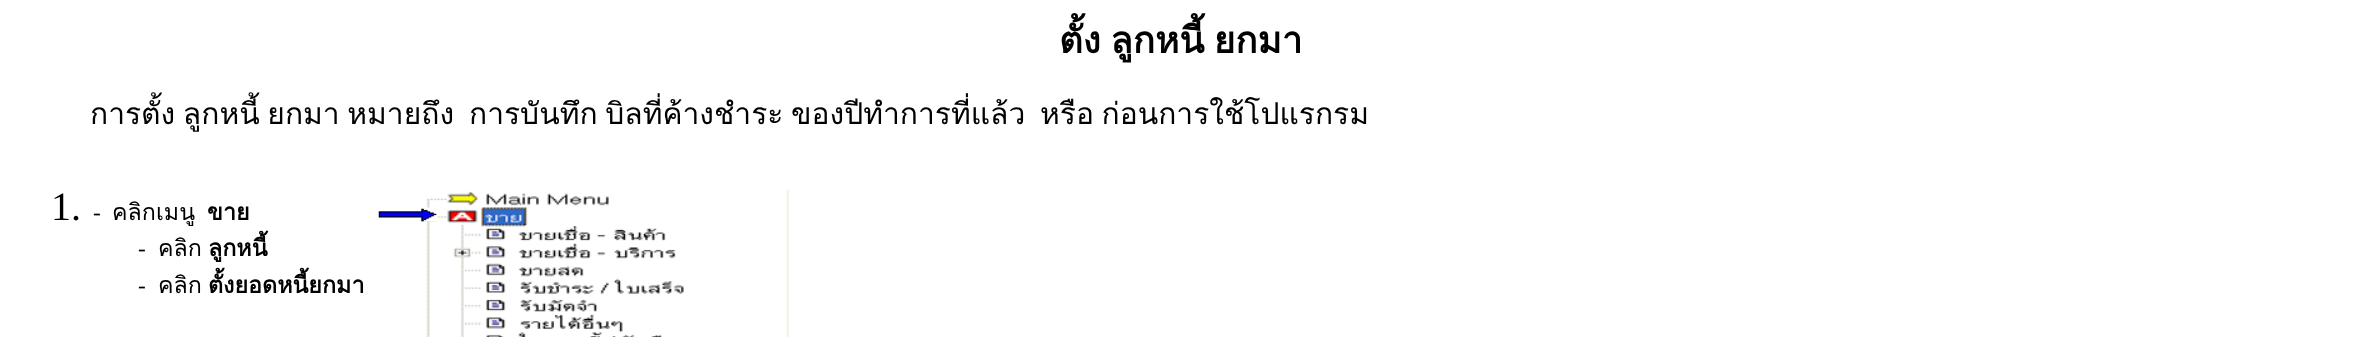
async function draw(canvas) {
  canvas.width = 2361;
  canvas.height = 337;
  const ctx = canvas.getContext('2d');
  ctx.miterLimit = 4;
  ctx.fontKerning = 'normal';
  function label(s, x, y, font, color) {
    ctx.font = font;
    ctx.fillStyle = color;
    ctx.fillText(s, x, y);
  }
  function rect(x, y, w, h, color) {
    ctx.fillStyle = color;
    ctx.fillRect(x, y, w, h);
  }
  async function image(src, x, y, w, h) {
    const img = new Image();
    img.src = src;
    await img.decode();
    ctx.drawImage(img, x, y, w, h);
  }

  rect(0, 0, 2361, 337, '#fff');
  ctx.wordSpacing = '-3px';
  label('ตั้ง ลูกหนี้ ยกมา', 1059, 53, 'bold 36.75px Loma', '#000');
  ctx.wordSpacing = '-2.5px';
  label('การตั้ง ลูกหนี้ ยกมา หมายถึง', 90, 124, '30px Loma', '#000');
  label('การบันทึก บิลที่ค้างชำระ ของปีทำการที่แล้ว', 469, 124, '30px Loma', '#000');
  label('หรือ ก่อนการใช้โปแรกรม', 1040, 124, '30px Loma', '#000');
  ctx.wordSpacing = '0px';
  label('1.', 51, 220, '40px Liberation Serif', '#000');
  label('-', 93, 220, '23.25px Liberation Serif', '#000');
  label('คลิกเมนู', 112, 220, '23.25px Loma', '#000');
  label('ขาย', 207, 220, 'bold 23.25px Loma', '#000');
  await image('assets/img2.png', 419, 190, 370, 147);
  await image('assets/img1.png', 378, 207, 60, 15);
  label('-', 138, 256, '23.25px Liberation Serif', '#000');
  label('คลิก', 158, 256, '23.25px Loma', '#000');
  label('ลูกหนี้', 208, 256, 'bold 23.25px Loma', '#000');
  label('-', 138, 293, '23.25px Liberation Serif', '#000');
  label('คลิก', 158, 293, '23.25px Loma', '#000');
  label('ตั้งยอดหนี้ยกมา', 208, 293, 'bold 23.25px Loma', '#000');
}

draw(document.querySelector('canvas'));
